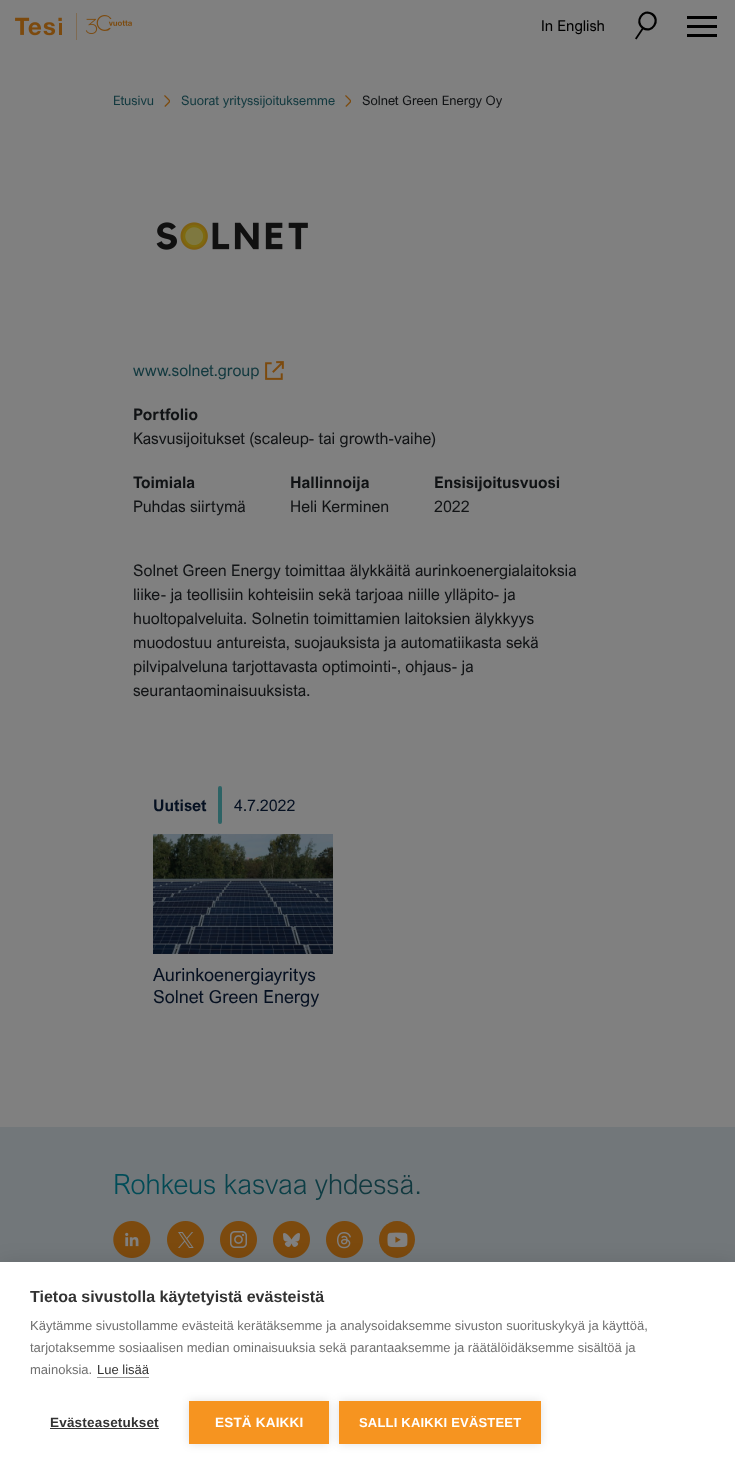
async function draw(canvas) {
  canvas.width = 735;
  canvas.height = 1469;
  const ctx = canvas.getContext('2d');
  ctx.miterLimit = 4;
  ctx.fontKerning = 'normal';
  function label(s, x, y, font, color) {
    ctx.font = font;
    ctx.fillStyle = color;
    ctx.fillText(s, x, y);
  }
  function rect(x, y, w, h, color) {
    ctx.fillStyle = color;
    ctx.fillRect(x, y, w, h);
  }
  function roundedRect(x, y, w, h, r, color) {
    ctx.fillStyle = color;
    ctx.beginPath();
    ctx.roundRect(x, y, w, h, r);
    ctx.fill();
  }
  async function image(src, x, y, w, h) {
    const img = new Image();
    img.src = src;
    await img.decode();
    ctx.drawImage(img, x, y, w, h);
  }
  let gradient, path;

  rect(0, 0, 735, 1469, '#808080');
  await image('assets/img1.png', 15, 13, 117, 27);
  label('In English', 541, 31, '15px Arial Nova', '#000');
  path = new Path2D('M652 14C661 20 652 34 643 28C634 22 643 8 652 14Z');
  ctx.strokeStyle = '#000';
  ctx.lineWidth = 2.2;
  ctx.stroke(path);
  path = new Path2D('M642 28L643.5 29L636.5 39.5L635 38.5Z');
  ctx.fill(path);
  rect(687, 25, 30, 3, '#000');
  rect(687, 16, 30, 3, '#000');
  rect(687, 34, 30, 3, '#000');
  label('Etusivu', 113, 105, '13px Arial Nova', '#12393f');
  await image('assets/img2.png', 164, 95, 6, 12);
  label('Suorat yrityssijoituksemme', 181, 105, '13px Arial Nova', '#12393f');
  await image('assets/img2.png', 345, 95, 6, 12);
  label('Solnet Green Energy Oy', 362, 105, '13px Arial Nova', '#111315');
  await image('assets/img3.png', 156, 222, 152, 28);
  label('www.solnet.group', 133, 376, '16px Arial Nova', '#12393f');
  await image('assets/img4.png', 265, 361, 19, 19);
  label('Portfolio', 133, 420, 'bold 16px Arial Nova', '#111315');
  label('Kasvusijoitukset (scaleup- tai growth-vaihe)', 133, 444, '16px Arial Nova', '#111315');
  label('Toimiala', 133, 488, 'bold 16px Arial Nova', '#111315');
  label('Puhdas siirtymä', 133, 512, '16px Arial Nova', '#111315');
  label('Hallinnoija', 290, 488, 'bold 16px Arial Nova', '#111315');
  label('Heli Kerminen', 290, 512, '16px Arial Nova', '#111315');
  label('Ensisijoitusvuosi', 434, 488, 'bold 16px Arial Nova', '#111315');
  label('2022', 434, 512, '16px Arial Nova', '#111315');
  label('Solnet Green Energy toimittaa älykkäitä aurinkoenergialaitoksia', 133, 576, '16px Arial Nova', '#111315');
  label('liike- ja teollisiin kohteisiin sekä tarjoaa niille ylläpito- ja', 133, 600, '16px Arial Nova', '#111315');
  label('huoltopalveluita. Solnetin toimittamien laitoksien älykkyys', 133, 624, '16px Arial Nova', '#111315');
  label('muodostuu antureista, suojauksista ja automatiikasta sekä', 133, 648, '16px Arial Nova', '#111315');
  label('pilvipalveluna tarjottavasta optimointi-, ohjaus- ja', 133, 672, '16px Arial Nova', '#111315');
  label('seurantaominaisuuksista.', 133, 696, '16px Arial Nova', '#111315');
  label('Uutiset', 153, 811, 'bold 16px Arial Nova', '#051021');
  roundedRect(218, 786, 4, 38, 2, '#2d6365');
  label('4.7.2022', 234, 811, '16px Arial Nova', '#051021');
  await image('assets/img5.png', 153, 834, 180, 120);
  label('Aurinkoenergiayritys', 153, 981, '18px Arial Nova', '#051021');
  label('Solnet Green Energy', 153, 1003, '18px Arial Nova', '#051021');
  rect(0, 1127, 735, 135, '#72777a');
  ctx.font = '300 28px Arial Nova';
  gradient = ctx.createLinearGradient(113, 1184, 421, 1184);
  gradient.addColorStop(0.01, '#004d59');
  gradient.addColorStop(0.82, '#12393f');
  ctx.fillStyle = gradient;
  ctx.fillText('Rohkeus kasvaa yhdessä.', 113, 1194);
  await image('assets/img6.png', 113, 1221, 38, 37);
  await image('assets/img7.png', 167, 1221, 37, 37);
  await image('assets/img8.png', 220, 1221, 37, 37);
  await image('assets/img9.png', 273, 1221, 37, 37);
  await image('assets/img10.png', 326, 1221, 37, 37);
  await image('assets/img11.png', 379, 1221, 36, 37);
  ctx.fillStyle = '#0000001a';
  ctx.filter = 'blur(10px)';
  ctx.beginPath();
  ctx.rect(0, 1262, 735, 207);
  ctx.fill();
  ctx.filter = 'none';
  rect(0, 1262, 735, 207, '#fff');
  label('Tietoa sivustolla käytetyistä evästeistä', 30, 1302, 'bold 16px Liberation Sans', '#333');
  label('Käytämme sivustollamme evästeitä kerätäksemme ja analysoidaksemme sivuston suorituskykyä ja käyttöä,', 30, 1330, '13px Liberation Sans', '#707070');
  label('tarjotaksemme sosiaalisen median ominaisuuksia sekä parantaaksemme ja räätälöidäksemme sisältöä ja', 30, 1352, '13px Liberation Sans', '#707070');
  label('mainoksia.', 30, 1374, '13px Liberation Sans', '#707070');
  label('Lue lisää', 97, 1374, '13px Liberation Sans', '#333');
  rect(97, 1377, 52, 1, '#999');
  ctx.letterSpacing = '0.2px';
  label('Evästeasetukset', 50, 1427, 'bold 13.5px Liberation Sans', '#333');
  rect(50, 1428, 109, 1, '#333');
  ctx.fillStyle = '#0000001f';
  ctx.filter = 'blur(5px)';
  ctx.beginPath();
  ctx.rect(189, 1401, 140, 43);
  ctx.fill();
  ctx.filter = 'none';
  rect(189, 1401, 140, 43, '#f69420');
  label('ESTÄ KAIKKI', 215, 1427, 'bold 13.5px Liberation Sans', '#fff');
  ctx.fillStyle = '#0000001f';
  ctx.filter = 'blur(5px)';
  ctx.beginPath();
  ctx.rect(339, 1401, 202, 43);
  ctx.fill();
  ctx.filter = 'none';
  rect(339, 1401, 202, 43, '#f69420');
  label('SALLI KAIKKI EVÄSTEET', 359, 1427, 'bold 13px Liberation Sans', '#fff');
}

draw(document.querySelector('canvas'));
